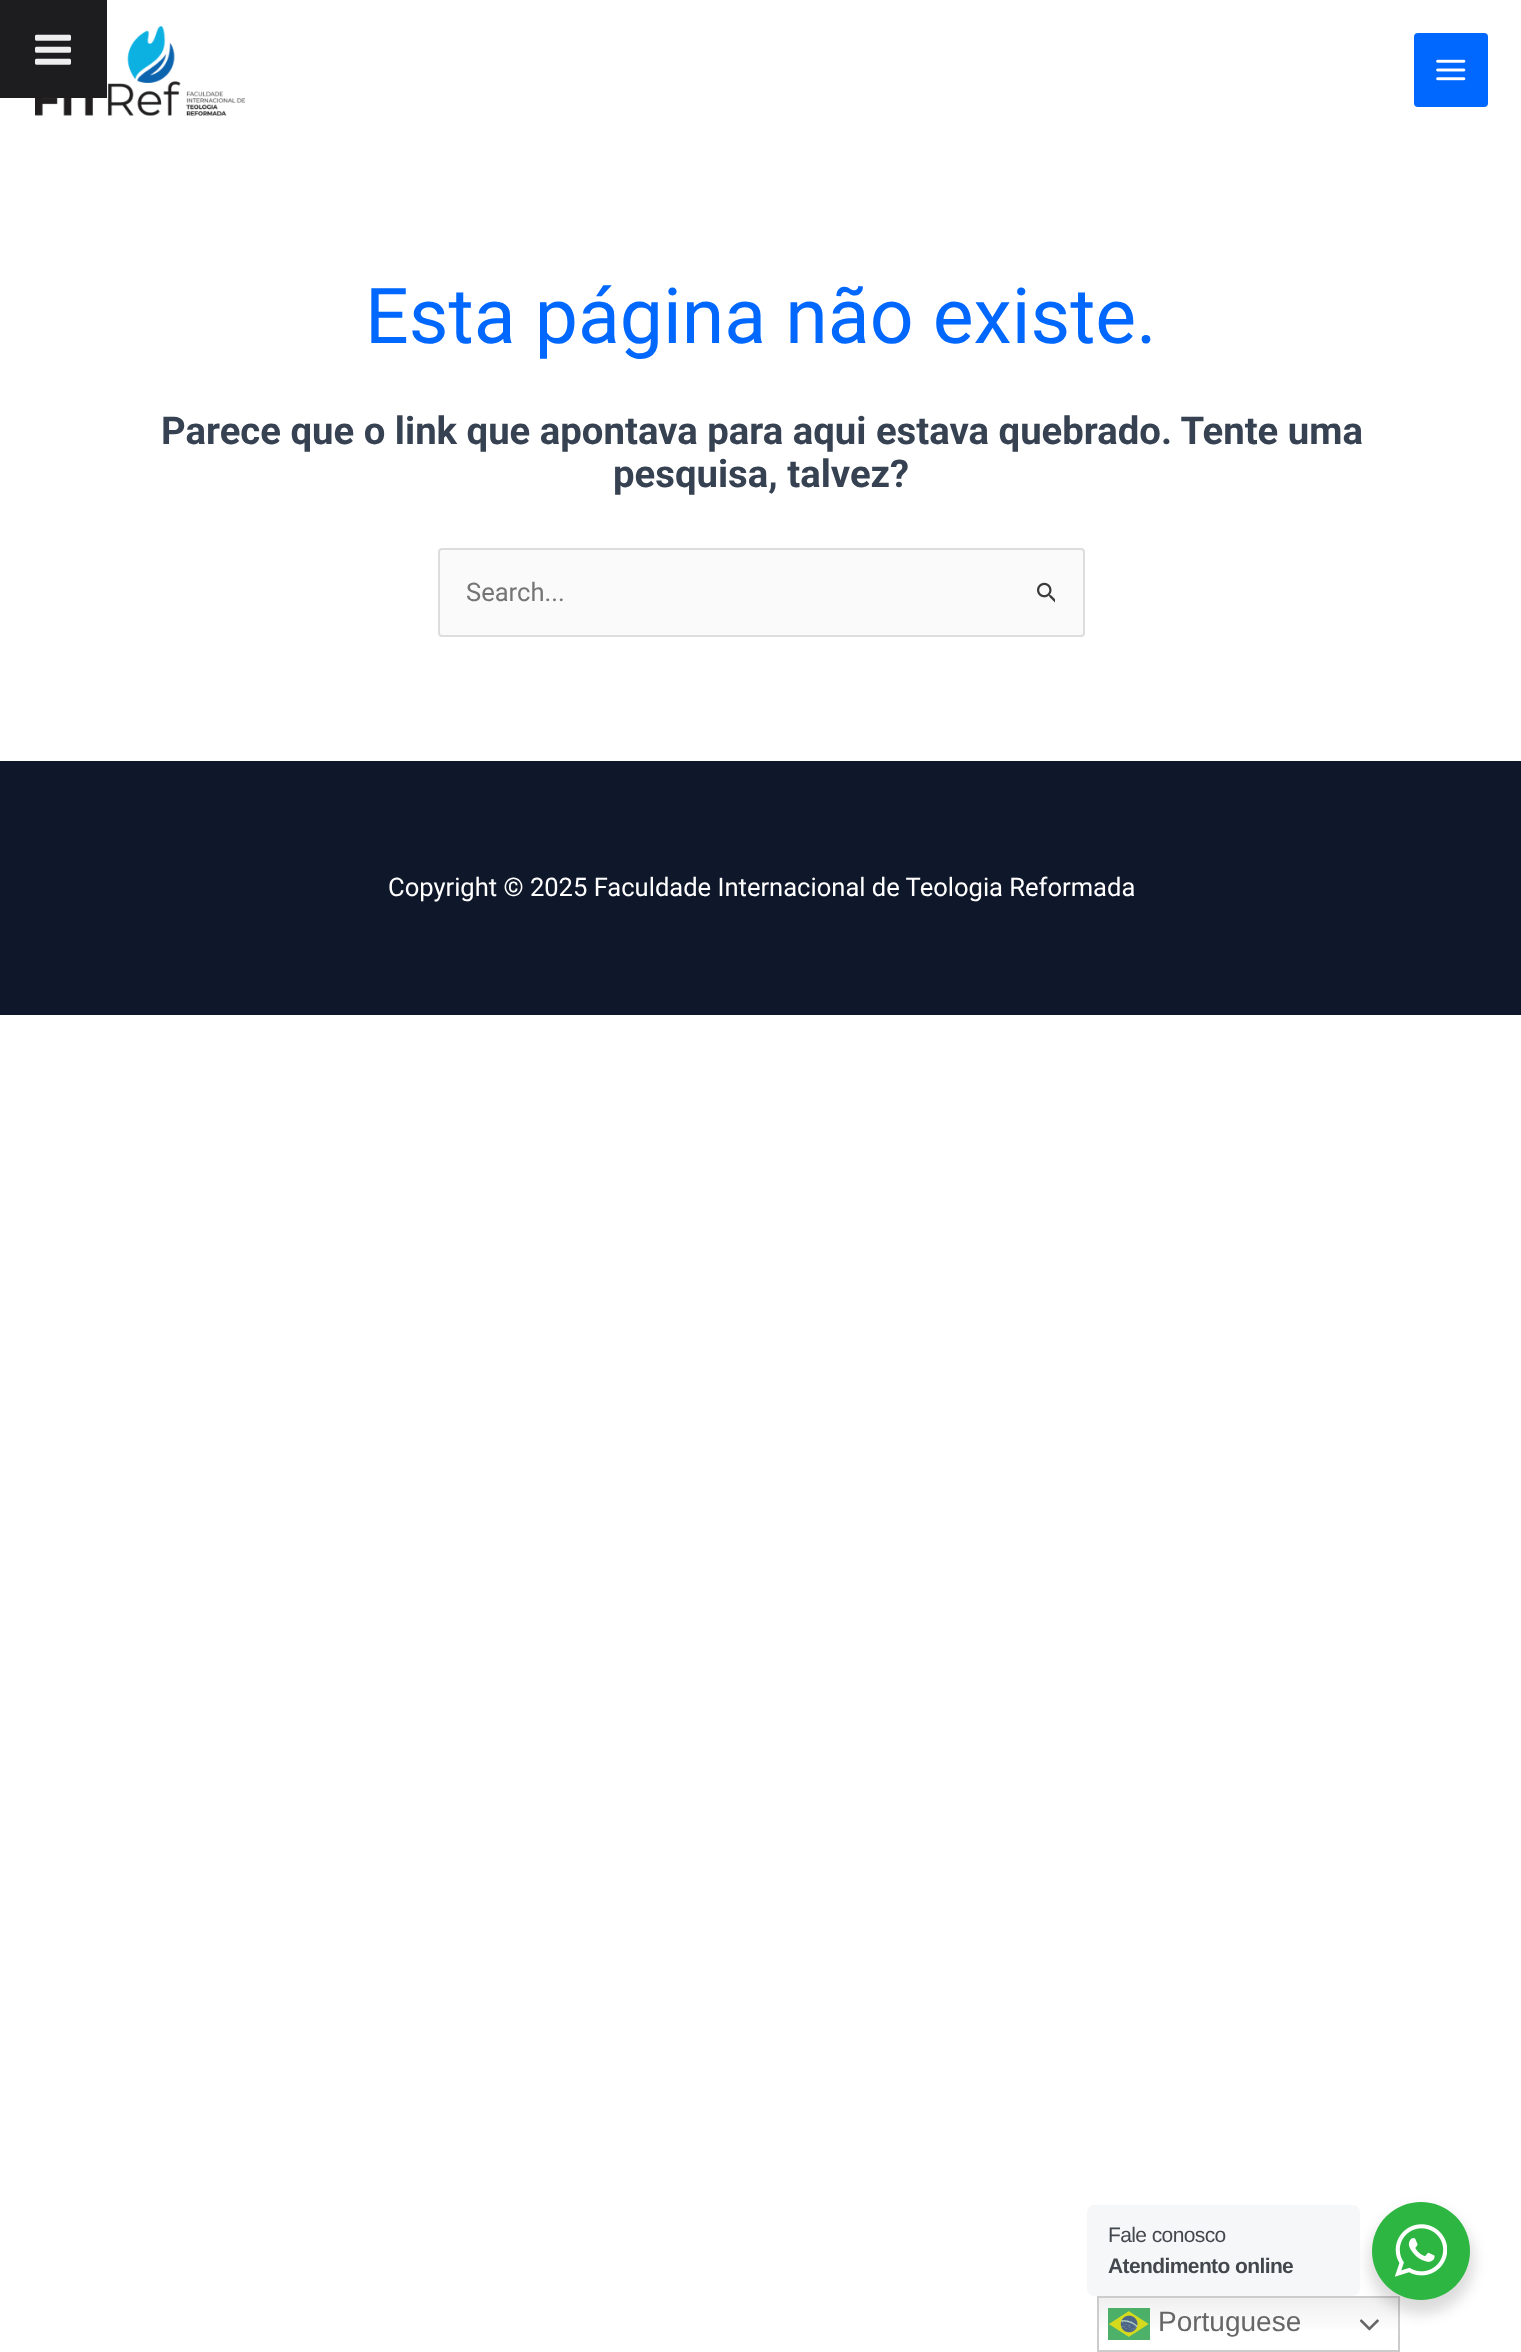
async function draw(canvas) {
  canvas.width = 1521;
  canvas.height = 2352;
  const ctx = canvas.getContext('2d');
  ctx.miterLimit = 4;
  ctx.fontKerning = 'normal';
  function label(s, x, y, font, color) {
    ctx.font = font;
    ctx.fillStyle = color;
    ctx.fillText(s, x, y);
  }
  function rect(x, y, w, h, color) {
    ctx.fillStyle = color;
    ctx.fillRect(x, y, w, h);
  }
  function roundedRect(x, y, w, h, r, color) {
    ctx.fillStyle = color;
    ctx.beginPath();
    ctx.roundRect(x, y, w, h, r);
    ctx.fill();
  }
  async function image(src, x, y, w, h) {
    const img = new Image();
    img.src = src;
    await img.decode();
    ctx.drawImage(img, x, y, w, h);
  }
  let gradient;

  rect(0, 0, 1521, 2352, '#fff');
  await image('assets/img2.png', 35, 26, 210, 90);
  rect(0, 0, 107, 98, '#1d1d20');
  await image('assets/img1.png', 35, 34, 36, 31);
  roundedRect(1414, 33, 74, 74, 4, '#0067ff');
  await image('assets/img3.png', 1436, 59, 30, 22);
  label('Esta página não existe.', 365, 343, '77px Roboto', '#0067ff');
  label('Parece que o link que apontava para aqui estava quebrado. Tente uma', 161, 444, 'bold 38.3px Roboto', '#364151');
  label('pesquisa, talvez?', 613, 487, 'bold 38.3px Roboto', '#364151');
  ctx.fillStyle = '#fafafa';
  ctx.beginPath();
  ctx.roundRect(439, 549, 645, 87, 3);
  ctx.fill();
  ctx.strokeStyle = '#ddd';
  ctx.lineWidth = 2;
  ctx.stroke();
  label('Search...', 466, 601, '25.55px Roboto', '#757575');
  await image('assets/img4.png', 1037, 582, 18, 21);
  rect(0, 761, 1521, 254, '#0f172a');
  label('Copyright © 2025 Faculdade Internacional de Teologia Reformada', 388, 896, '25.55px Roboto', '#fff');
  gradient = ctx.createLinearGradient(1249, 2296, 1249, 2352);
  gradient.addColorStop(0, '#efefef');
  gradient.addColorStop(0.7, '#fff');
  ctx.fillStyle = gradient;
  ctx.fillRect(1099, 2298, 299, 31);
  ctx.strokeStyle = '#ccc';
  ctx.strokeRect(1098, 2297, 301, 54);
  await image('assets/img7.png', 1360, 2319, 19, 12);
  ctx.fillStyle = '#00000024';
  ctx.filter = 'blur(7px)';
  ctx.beginPath();
  ctx.roundRect(1369, 2209, 105, 105, 52.5);
  ctx.fill();
  ctx.filter = 'none';
  roundedRect(1087, 2205, 273, 91, 7, '#f5f7f9');
  ctx.letterSpacing = '-0.6px';
  label('Fale conosco', 1108, 2242, '21px Liberation Sans', '#43474e');
  label('Atendimento online', 1108, 2273, 'bold 21px Liberation Sans', '#43474e');
  ctx.fillStyle = '#2db742';
  ctx.beginPath();
  ctx.arc(1421, 2251, 49, 0, 2 * Math.PI);
  ctx.fill();
  await image('assets/img5.png', 1395, 2224, 52, 53);
  await image('assets/img6.png', 1108, 2308, 42, 32);
  ctx.letterSpacing = '0px';
  label('Portuguese', 1158, 2331, '28px Liberation Sans', '#666');
}

draw(document.querySelector('canvas'));
